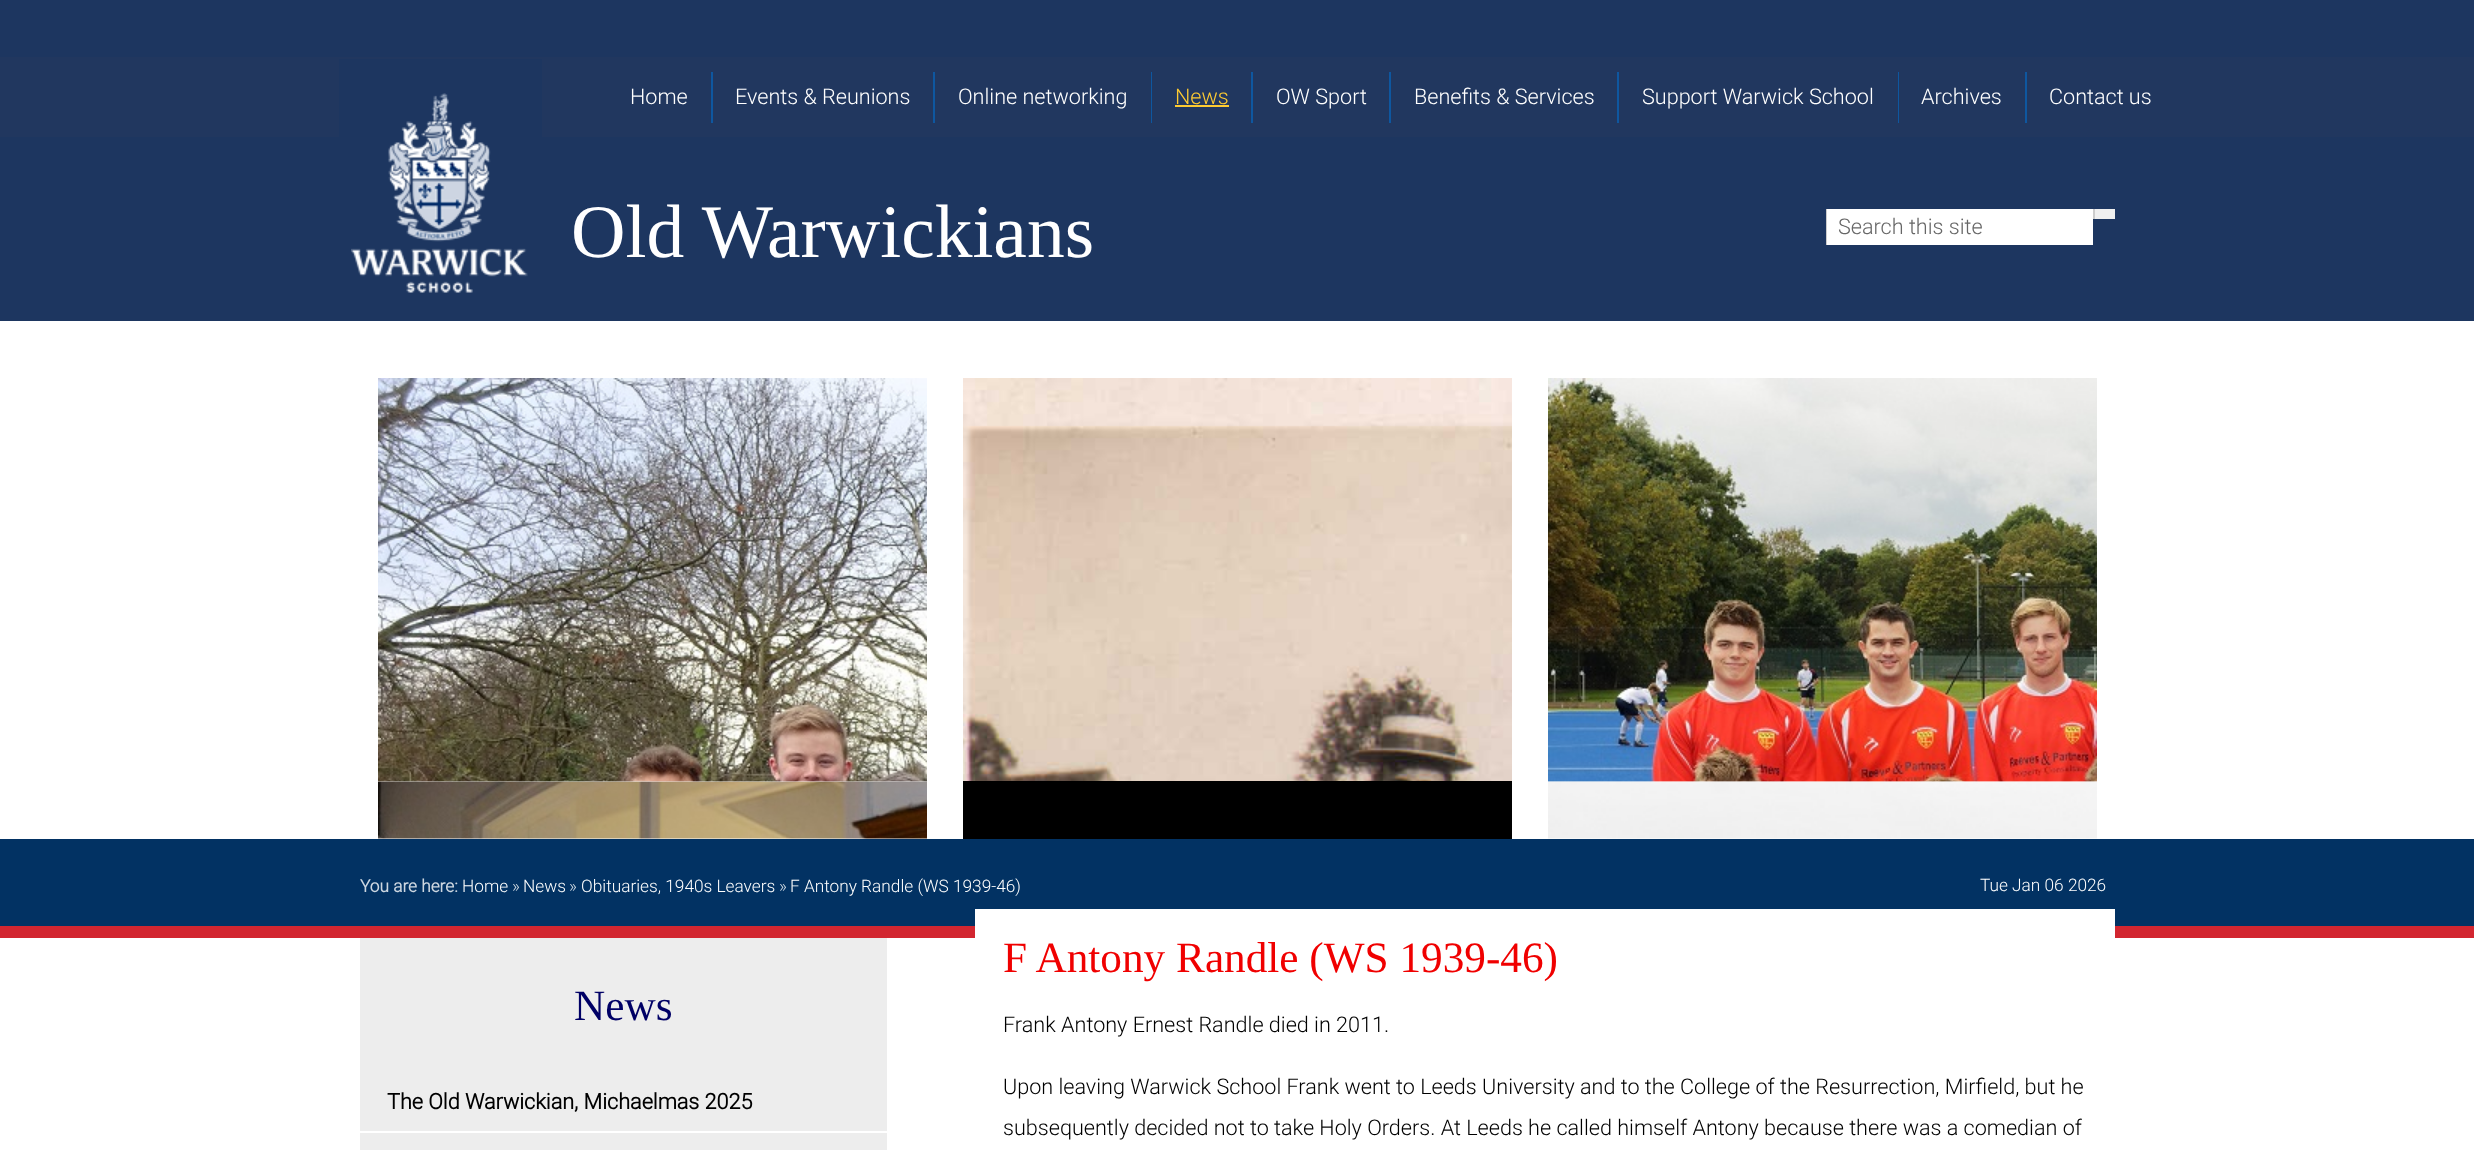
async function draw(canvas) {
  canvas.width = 2474;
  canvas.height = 1150;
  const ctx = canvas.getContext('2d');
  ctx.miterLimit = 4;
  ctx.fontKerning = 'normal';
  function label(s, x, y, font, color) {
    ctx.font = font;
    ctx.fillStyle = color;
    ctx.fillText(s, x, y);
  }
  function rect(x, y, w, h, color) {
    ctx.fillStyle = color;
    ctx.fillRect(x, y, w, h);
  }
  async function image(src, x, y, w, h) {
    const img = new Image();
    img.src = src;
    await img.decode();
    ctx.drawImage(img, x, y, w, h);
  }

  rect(0, 0, 2474, 1150, '#fff');
  rect(0, 0, 2474, 321, '#1d3660');
  rect(0, 57, 2474, 80, '#21375f');
  rect(711, 72, 2, 51, '#0e57a0');
  label('Home', 630, 104, '300 21.6px Roboto', '#fff');
  rect(933, 72, 2, 51, '#0e57a0');
  label('Events & Reunions', 735, 104, '300 21.6px Roboto', '#fff');
  rect(1151, 72, 1, 51, '#0e57a0');
  label('Online networking', 958, 104, '300 21.6px Roboto', '#fff');
  rect(1251, 72, 2, 51, '#0e57a0');
  label('News', 1175, 104, '300 21.6px Roboto', '#fecb32');
  rect(1175, 105, 54, 2, '#fecb32');
  rect(1389, 72, 2, 51, '#0e57a0');
  label('OW Sport', 1276, 104, '300 21.6px Roboto', '#fff');
  rect(1617, 72, 2, 51, '#0e57a0');
  label('Benefits & Services', 1414, 104, '300 21.6px Roboto', '#fff');
  rect(1898, 72, 1, 51, '#0e57a0');
  label('Support Warwick School', 1642, 104, '300 21.6px Roboto', '#fff');
  rect(2025, 72, 2, 51, '#0e57a0');
  label('Archives', 1921, 104, '300 21.6px Roboto', '#fff');
  label('Contact us', 2049, 104, '300 21.6px Roboto', '#fff');
  rect(339, 59, 203, 78, '#1d3660');
  await image('assets/img1.png', 351, 93, 177, 200);
  label('Old Warwickians', 571, 257, '75.5px Liberation Serif', '#fff');
  rect(1826, 209, 1, 36, '#ccc');
  rect(2095, 209, 20, 10, '#efefef');
  rect(2093, 209, 2, 10, '#ccc');
  rect(1827, 209, 266, 36, '#fff');
  label('Search this site', 1838, 234, '300 21.6px Roboto', '#666');
  await image('assets/img2.png', 378, 378, 549, 404);
  await image('assets/img3.png', 378, 781, 549, 58);
  await image('assets/img4.png', 963, 378, 549, 403);
  rect(963, 781, 549, 58, '#000');
  await image('assets/img5.png', 1548, 378, 549, 404);
  await image('assets/img6.png', 1548, 781, 549, 58);
  rect(0, 839, 2474, 87, '#023263');
  label('You are here:', 360, 892, 'bold 17.25px Roboto', '#ccd6e0');
  label('Home', 462, 892, '300 17.25px Roboto', '#fff');
  label('»', 512, 892, '300 17.25px Roboto', '#ccd6e0');
  label('News', 523, 892, '300 17.25px Roboto', '#fff');
  label('»', 569, 892, '300 17.25px Roboto', '#ccd6e0');
  label('Obituaries, 1940s Leavers', 581, 892, '300 17.25px Roboto', '#fff');
  label('»', 779, 892, '300 17.25px Roboto', '#ccd6e0');
  label('F Antony Randle (WS 1939-46)', 790, 892, '300 17.25px Roboto', '#fff');
  label('Tue Jan 06 2026', 1980, 891, '300 17.25px Roboto', '#fff');
  rect(0, 926, 2474, 12, '#d22630');
  rect(360, 938, 527, 193, '#ededed');
  label('News', 574, 1020, '43.25px Liberation Serif', '#006');
  label('The Old Warwickian, Michaelmas 2025', 387, 1109, 'bold 21.6px Roboto', '#000');
  rect(360, 1133, 527, 17, '#ededed');
  rect(975, 909, 1140, 29, '#fff');
  label('F Antony Randle (WS 1939-46)', 1003, 972, '43.25px Liberation Serif', '#f00000');
  label('Frank Antony Ernest Randle died in 2011.', 1003, 1032, '300 21.6px Roboto', '#000');
  label('Upon leaving Warwick School Frank went to Leeds University and to the College of the Resurrection, Mirfield, but he', 1003, 1094, '300 21.6px Roboto', '#000');
  label('subsequently decided not to take Holy Orders. At Leeds he called himself Antony because there was a comedian of', 1003, 1135, '300 21.6px Roboto', '#000');
}

draw(document.querySelector('canvas'));
